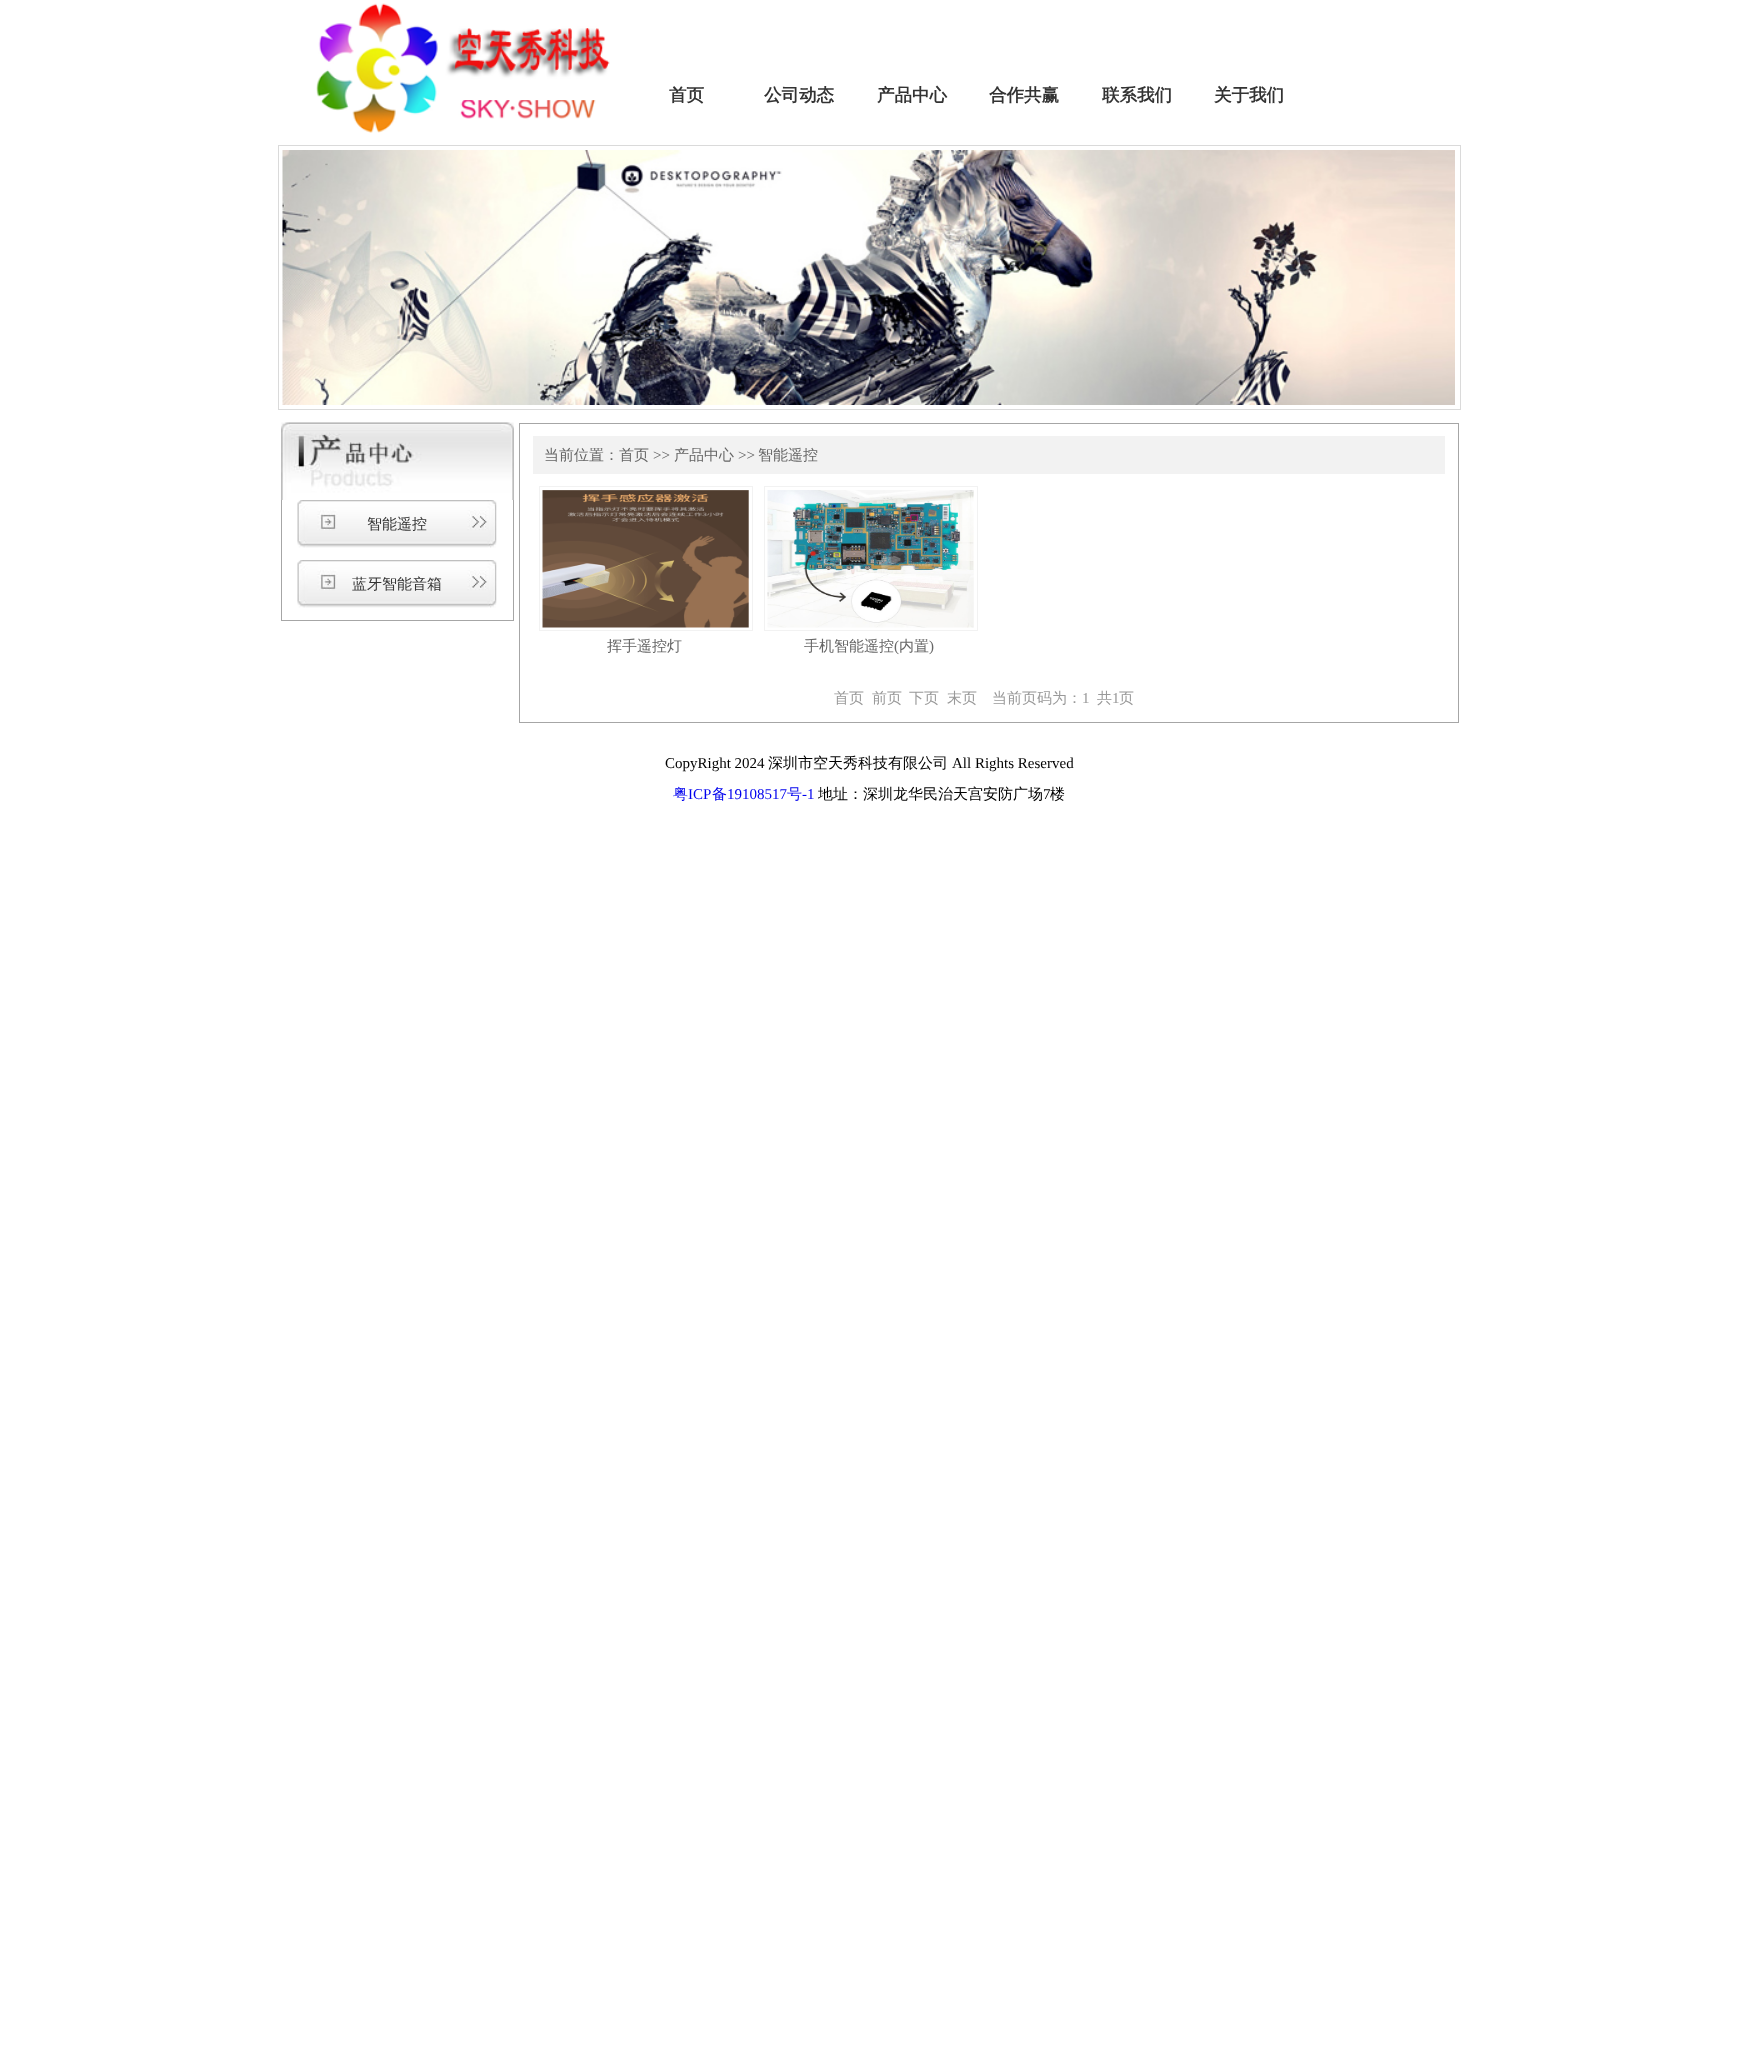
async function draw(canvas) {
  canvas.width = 1738;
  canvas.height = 2052;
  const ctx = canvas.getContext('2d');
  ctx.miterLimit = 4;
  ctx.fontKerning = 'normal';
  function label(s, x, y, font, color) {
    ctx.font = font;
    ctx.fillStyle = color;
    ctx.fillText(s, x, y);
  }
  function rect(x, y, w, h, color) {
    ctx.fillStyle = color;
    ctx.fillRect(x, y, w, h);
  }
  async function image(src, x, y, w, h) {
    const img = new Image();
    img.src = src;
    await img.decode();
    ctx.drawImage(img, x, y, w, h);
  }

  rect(0, 0, 1738, 2052, '#fff');
  await image('assets/img1.png', 316, 3, 294, 130);
  label('首页', 669, 101, 'bold 17.5px WenQuanYi Zen Hei', '#333');
  label('公司动态', 764, 101, 'bold 17.5px WenQuanYi Zen Hei', '#333');
  label('产品中心', 877, 101, 'bold 17.5px WenQuanYi Zen Hei', '#333');
  label('合作共赢', 989, 101, 'bold 17.5px WenQuanYi Zen Hei', '#333');
  label('联系我们', 1102, 101, 'bold 17.5px WenQuanYi Zen Hei', '#333');
  label('关于我们', 1214, 101, 'bold 17.5px WenQuanYi Zen Hei', '#333');
  ctx.strokeStyle = '#dadada';
  ctx.strokeRect(278.5, 145.5, 1182, 264);
  await image('assets/img2.png', 282, 150, 1173, 255);
  await image('assets/img3.png', 281, 422, 233, 78);
  rect(513, 500, 1, 121, '#a6a6a6');
  rect(281, 620, 233, 1, '#a6a6a6');
  rect(281, 500, 1, 121, '#a6a6a6');
  await image('assets/img4.png', 297, 500, 200, 48);
  label('智能遥控', 367, 529, '500 15px WenQuanYi Zen Hei', '#333');
  await image('assets/img5.png', 297, 560, 200, 48);
  label('蓝牙智能音箱', 352, 589, '500 15px WenQuanYi Zen Hei', '#333');
  ctx.strokeStyle = '#a6a6a6';
  ctx.strokeRect(519.5, 423.5, 939, 299);
  rect(533, 436, 912, 38, '#f2f2f2');
  label('当前位置：首页', 544, 460, '500 15px WenQuanYi Zen Hei', '#666');
  label('>>', 653, 460, '15px Liberation Serif', '#666');
  label('产品中心', 674, 460, '500 15px WenQuanYi Zen Hei', '#666');
  label('>>', 738, 460, '15px Liberation Serif', '#666');
  label('智能遥控', 758, 460, '500 15px WenQuanYi Zen Hei', '#666');
  ctx.strokeStyle = '#f2f2f2';
  ctx.strokeRect(539.5, 486.5, 213, 144);
  await image('assets/img6.png', 542, 490, 207, 138);
  label('挥手遥控灯', 607, 651, '500 15px WenQuanYi Zen Hei', '#666');
  ctx.strokeRect(764.5, 486.5, 213, 144);
  await image('assets/img7.png', 767, 490, 207, 138);
  label('手机智能遥控', 804, 651, '500 15px WenQuanYi Zen Hei', '#666');
  label('(', 894, 651, '15px Liberation Serif', '#666');
  label('内置', 899, 651, '500 15px WenQuanYi Zen Hei', '#666');
  label(')', 929, 651, '15px Liberation Serif', '#666');
  label('首页', 834, 703, '500 15px WenQuanYi Zen Hei', '#999');
  label('前页', 872, 703, '500 15px WenQuanYi Zen Hei', '#999');
  label('下页', 909, 703, '500 15px WenQuanYi Zen Hei', '#999');
  label('末页', 947, 703, '500 15px WenQuanYi Zen Hei', '#999');
  label('当前页码为：', 992, 703, '500 15px WenQuanYi Zen Hei', '#999');
  label('1', 1082, 703, '15px Liberation Serif', '#999');
  label('共', 1097, 703, '500 15px WenQuanYi Zen Hei', '#999');
  label('1', 1112, 703, '15px Liberation Serif', '#999');
  label('页', 1119, 703, '500 15px WenQuanYi Zen Hei', '#999');
  label('CopyRight 2024', 665, 768, '15px Liberation Serif', '#000');
  label('深圳市空天秀科技有限公司', 768, 768, '500 15px WenQuanYi Zen Hei', '#000');
  label('All Rights Reserved', 952, 768, '15px Liberation Serif', '#000');
  label('粤', 673, 799, '500 15px WenQuanYi Zen Hei', '#00e');
  label('ICP', 688, 799, '15px Liberation Serif', '#00e');
  label('备', 712, 799, '500 15px WenQuanYi Zen Hei', '#00e');
  label('19108517', 727, 799, '15px Liberation Serif', '#00e');
  label('号', 787, 799, '500 15px WenQuanYi Zen Hei', '#00e');
  label('-1', 802, 799, '15px Liberation Serif', '#00e');
  label('地址：深圳龙华民治天宫安防广场', 818, 799, '500 15px WenQuanYi Zen Hei', '#000');
  label('7', 1043, 799, '15px Liberation Serif', '#000');
  label('楼', 1050, 799, '500 15px WenQuanYi Zen Hei', '#000');
}

draw(document.querySelector('canvas'));
